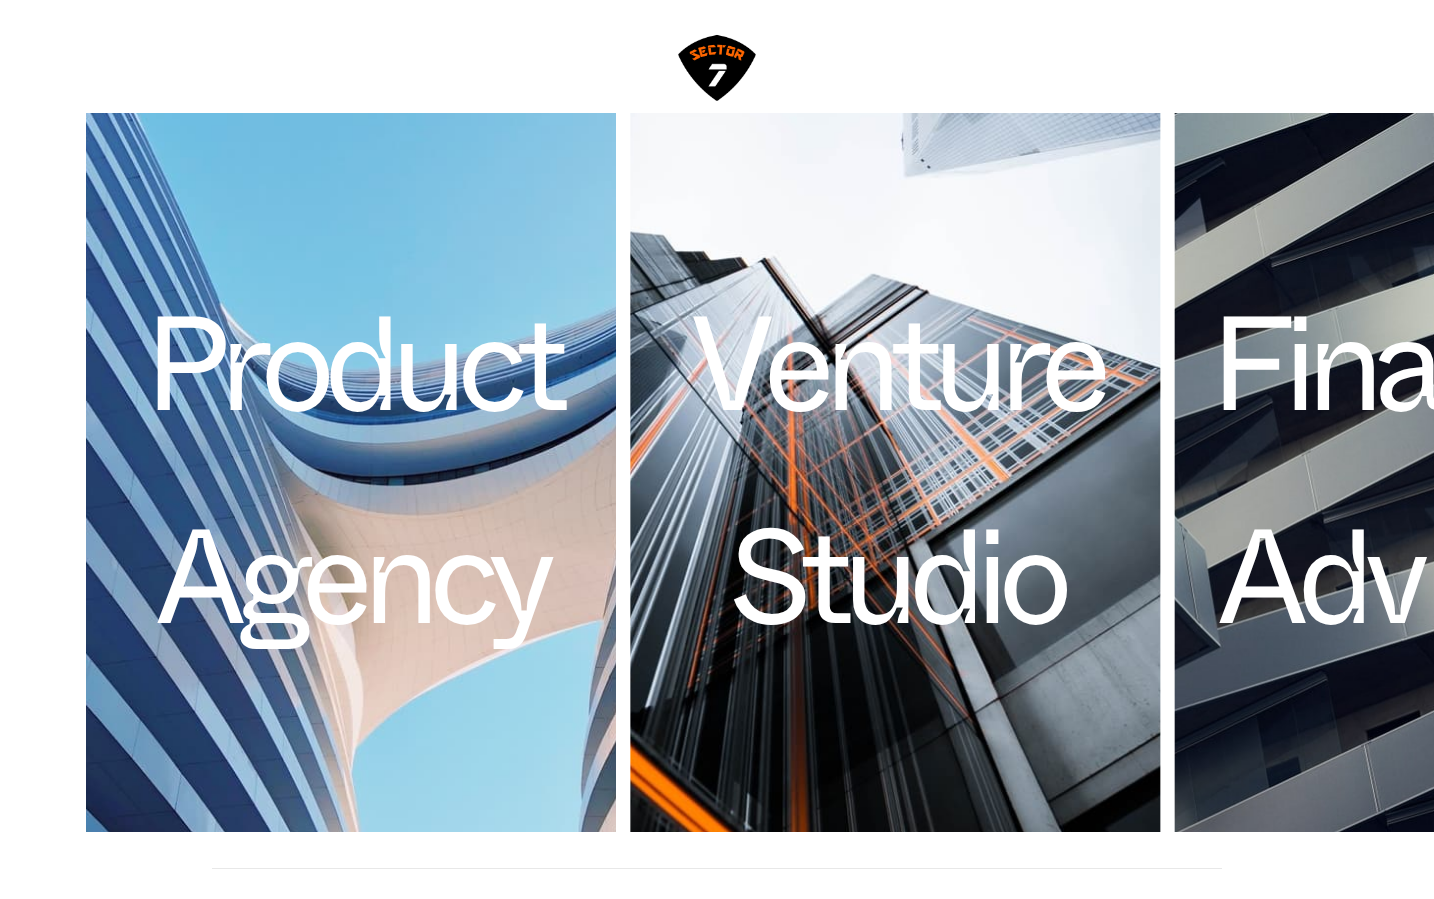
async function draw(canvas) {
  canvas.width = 1434;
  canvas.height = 899;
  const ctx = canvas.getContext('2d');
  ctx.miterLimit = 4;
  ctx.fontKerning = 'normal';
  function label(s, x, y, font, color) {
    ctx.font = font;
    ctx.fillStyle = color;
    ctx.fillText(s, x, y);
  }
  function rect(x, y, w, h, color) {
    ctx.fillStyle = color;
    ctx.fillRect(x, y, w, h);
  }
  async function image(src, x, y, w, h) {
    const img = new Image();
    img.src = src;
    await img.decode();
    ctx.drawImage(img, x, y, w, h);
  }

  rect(0, 0, 1434, 899, '#fff');
  await image('assets/img1.png', 678, 34, 78, 67);
  await image('assets/img2.png', 86, 113, 530, 719);
  ctx.letterSpacing = '-10.75px';
  label('Product', 144, 410, '133.5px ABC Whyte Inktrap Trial', '#fff');
  label('Agency', 155, 623, '133.5px ABC Whyte Inktrap Trial', '#fff');
  await image('assets/img3.png', 630, 113, 531, 719);
  label('Venture', 689, 410, '133.5px ABC Whyte Inktrap Trial', '#fff');
  label('Studio', 729, 623, '133.5px ABC Whyte Inktrap Trial', '#fff');
  await image('assets/img4.png', 1174, 113, 260, 719);
  label('Fina', 1210, 410, '133.5px ABC Whyte Inktrap Trial', '#fff');
  label('Adv', 1217, 623, '133.5px ABC Whyte Inktrap Trial', '#fff');
  rect(212, 868, 1010, 1, '#e8e8e8');
}

draw(document.querySelector('canvas'));
